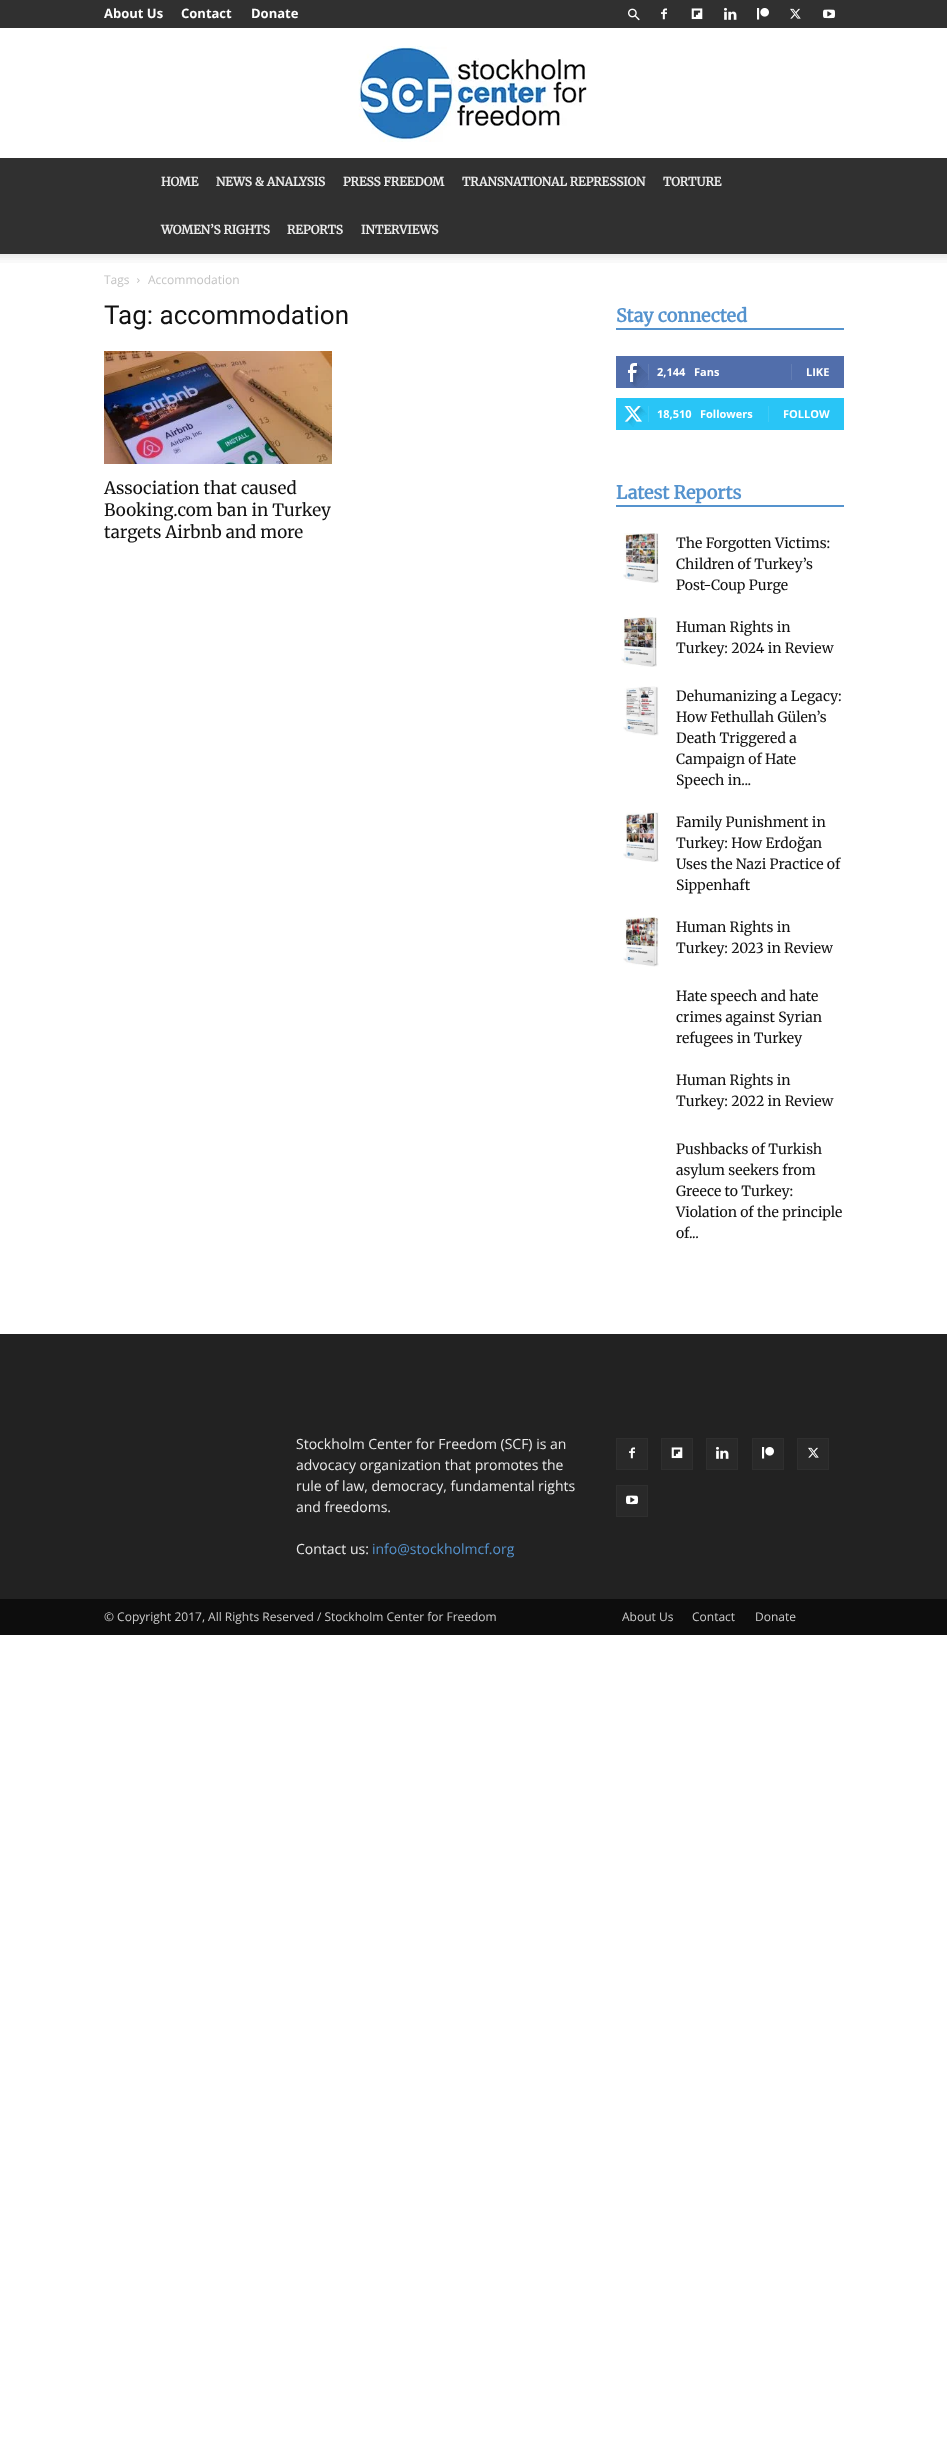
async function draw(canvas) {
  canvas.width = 947;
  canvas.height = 2441;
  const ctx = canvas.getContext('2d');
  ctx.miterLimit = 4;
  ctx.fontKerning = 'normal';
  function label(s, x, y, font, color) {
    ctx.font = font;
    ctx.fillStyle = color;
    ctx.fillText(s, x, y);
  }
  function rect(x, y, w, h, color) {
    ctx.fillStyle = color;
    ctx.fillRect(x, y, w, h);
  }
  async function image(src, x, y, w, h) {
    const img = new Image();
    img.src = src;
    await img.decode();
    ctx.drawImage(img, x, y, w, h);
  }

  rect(0, 0, 947, 2441, '#fff');
  rect(0, 0, 947, 28, '#303030');
  label('About Us', 104, 18, 'bold 13px Open Sans', '#fff');
  label('Contact', 181, 18, 'bold 13px Open Sans', '#fff');
  label('Donate', 251, 18, 'bold 13px Open Sans', '#fff');
  await image('assets/img1.png', 628, 8, 12, 13);
  await image('assets/img2.png', 661, 8, 6, 12);
  await image('assets/img3.png', 691, 8, 12, 12);
  await image('assets/img4.png', 724, 7, 13, 13);
  await image('assets/img5.png', 757, 8, 12, 12);
  await image('assets/img6.png', 790, 8, 11, 11);
  await image('assets/img7.png', 823, 9, 12, 10);
  await image('assets/img8.png', 358, 46, 229, 96);
  rect(0, 158, 947, 96, '#303030');
  label('HOME', 161, 186, 'bold 12px Merriweather', '#eaeaea');
  label('NEWS & ANALYSIS', 216, 186, 'bold 12px Merriweather', '#eaeaea');
  label('PRESS FREEDOM', 343, 186, 'bold 12px Merriweather', '#eaeaea');
  label('TRANSNATIONAL REPRESSION', 462, 186, 'bold 12px Merriweather', '#eaeaea');
  label('TORTURE', 663, 186, 'bold 12px Merriweather', '#eaeaea');
  label('WOMEN’S RIGHTS', 161, 234, 'bold 12px Merriweather', '#eaeaea');
  label('REPORTS', 287, 234, 'bold 12px Merriweather', '#eaeaea');
  label('INTERVIEWS', 361, 234, 'bold 12px Merriweather', '#eaeaea');
  await image('assets/img9.png', 0, 254, 947, 9);
  label('Tags', 104, 284, '12px Open Sans', '#c3c3c3');
  await image('assets/img10.png', 137, 278, 3, 5);
  label('Accommodation', 148, 284, '12px Open Sans', '#c3c3c3');
  label('Tag: accommodation', 104, 324, '26px Roboto', '#111');
  await image('assets/img11.png', 104, 351, 228, 113);
  label('Association that caused', 104, 494, '300 17px Merriweather', '#111');
  label('Booking.com ban in Turkey', 104, 516, '300 17px Merriweather', '#111');
  label('targets Airbnb and more', 104, 538, '300 17px Merriweather', '#111');
  rect(616, 328, 228, 2, '#5593ce');
  label('Stay connected', 616, 322, 'bold 18px Merriweather', '#5593ce');
  rect(616, 356, 228, 32, '#516eab');
  await image('assets/img12.png', 628, 363, 20, 25);
  rect(648, 364, 1, 16, '#627db3');
  label('2,144', 657, 376, 'bold 11px Open Sans', '#fff');
  label('Fans', 694, 376, 'bold 11px Open Sans', '#fff');
  rect(791, 364, 1, 16, '#627db3');
  label('LIKE', 806, 376, 'bold 11px Open Sans', '#fff');
  rect(616, 398, 228, 32, '#29c5f6');
  await image('assets/img13.png', 624, 406, 23, 21);
  rect(648, 406, 1, 16, '#3ecbf7');
  label('18,510', 657, 418, 'bold 11px Open Sans', '#fff');
  label('Followers', 700, 418, 'bold 11px Open Sans', '#fff');
  rect(768, 406, 1, 16, '#3ecbf7');
  label('FOLLOW', 783, 418, 'bold 11px Open Sans', '#fff');
  rect(616, 505, 228, 2, '#5593ce');
  label('Latest Reports', 616, 499, 'bold 18px Merriweather', '#5593ce');
  await image('assets/img14.png', 623, 533, 36, 50);
  label('The Forgotten Victims:', 676, 548, '300 14px Merriweather', '#111');
  label('Children of Turkey’s', 676, 569, '300 14px Merriweather', '#111');
  label('Post-Coup Purge', 676, 590, '300 14px Merriweather', '#111');
  await image('assets/img15.png', 621, 617, 36, 50);
  label('Human Rights in', 676, 632, '300 14px Merriweather', '#111');
  label('Turkey: 2024 in Review', 676, 653, '300 14px Merriweather', '#111');
  await image('assets/img16.png', 623, 686, 36, 50);
  label('Dehumanizing a Legacy:', 676, 701, '300 14px Merriweather', '#111');
  label('How Fethullah Gülen’s', 676, 722, '300 14px Merriweather', '#111');
  label('Death Triggered a', 676, 743, '300 14px Merriweather', '#111');
  label('Campaign of Hate', 676, 764, '300 14px Merriweather', '#111');
  label('Speech in...', 676, 785, '300 14px Merriweather', '#111');
  await image('assets/img17.png', 623, 812, 36, 50);
  label('Family Punishment in', 676, 827, '300 14px Merriweather', '#111');
  label('Turkey: How Erdoğan', 676, 848, '300 14px Merriweather', '#111');
  label('Uses the Nazi Practice of', 676, 869, '300 14px Merriweather', '#111');
  label('Sippenhaft', 676, 890, '300 14px Merriweather', '#111');
  await image('assets/img18.png', 623, 917, 36, 50);
  label('Human Rights in', 676, 932, '300 14px Merriweather', '#111');
  label('Turkey: 2023 in Review', 676, 953, '300 14px Merriweather', '#111');
  label('Hate speech and hate', 676, 1001, '300 14px Merriweather', '#111');
  label('crimes against Syrian', 676, 1022, '300 14px Merriweather', '#111');
  label('refugees in Turkey', 676, 1043, '300 14px Merriweather', '#111');
  label('Human Rights in', 676, 1085, '300 14px Merriweather', '#111');
  label('Turkey: 2022 in Review', 676, 1106, '300 14px Merriweather', '#111');
  label('Pushbacks of Turkish', 676, 1154, '300 14px Merriweather', '#111');
  label('asylum seekers from', 676, 1175, '300 14px Merriweather', '#111');
  label('Greece to Turkey:', 676, 1196, '300 14px Merriweather', '#111');
  label('Violation of the principle', 676, 1217, '300 14px Merriweather', '#111');
  label('of...', 676, 1238, '300 14px Merriweather', '#111');
  rect(0, 1334, 947, 265, '#222');
  label('Stockholm Center for Freedom (SCF) is an', 296, 1449, '14px Open Sans', '#eaeaea');
  label('advocacy organization that promotes the', 296, 1470, '14px Open Sans', '#eaeaea');
  label('rule of law, democracy, fundamental rights', 296, 1491, '14px Open Sans', '#eaeaea');
  label('and freedoms.', 296, 1512, '14px Open Sans', '#eaeaea');
  label('Contact us:', 296, 1554, '14px Open Sans', '#eaeaea');
  label('info@stockholmcf.org', 372, 1554, '14px Open Sans', '#5593ce');
  rect(617, 1439, 30, 30, '#292929');
  await image('assets/img19.png', 629, 1447, 6, 12);
  ctx.strokeStyle = '#2f2f2f';
  ctx.strokeRect(616.5, 1438.5, 31, 31);
  rect(662, 1439, 30, 30, '#292929');
  await image('assets/img20.png', 671, 1447, 12, 12);
  ctx.strokeRect(661.5, 1438.5, 31, 31);
  rect(707, 1439, 30, 30, '#292929');
  await image('assets/img21.png', 716, 1446, 13, 13);
  ctx.strokeRect(706.5, 1438.5, 31, 31);
  rect(753, 1439, 30, 30, '#292929');
  await image('assets/img22.png', 762, 1447, 12, 12);
  ctx.strokeRect(752.5, 1438.5, 31, 31);
  rect(798, 1439, 30, 30, '#292929');
  await image('assets/img23.png', 808, 1447, 11, 11);
  ctx.strokeRect(797.5, 1438.5, 31, 31);
  rect(617, 1486, 30, 30, '#292929');
  await image('assets/img24.png', 626, 1495, 12, 10);
  ctx.strokeRect(616.5, 1485.5, 31, 31);
  rect(0, 1599, 947, 36, '#0d0d0d');
  label('© Copyright 2017, All Rights Reserved / Stockholm Center for Freedom', 104, 1621, '12px Open Sans', '#ccc');
  label('About Us', 622, 1621, '12px Open Sans', '#ccc');
  label('Contact', 692, 1621, '12px Open Sans', '#ccc');
  label('Donate', 755, 1621, '12px Open Sans', '#ccc');
}

draw(document.querySelector('canvas'));
